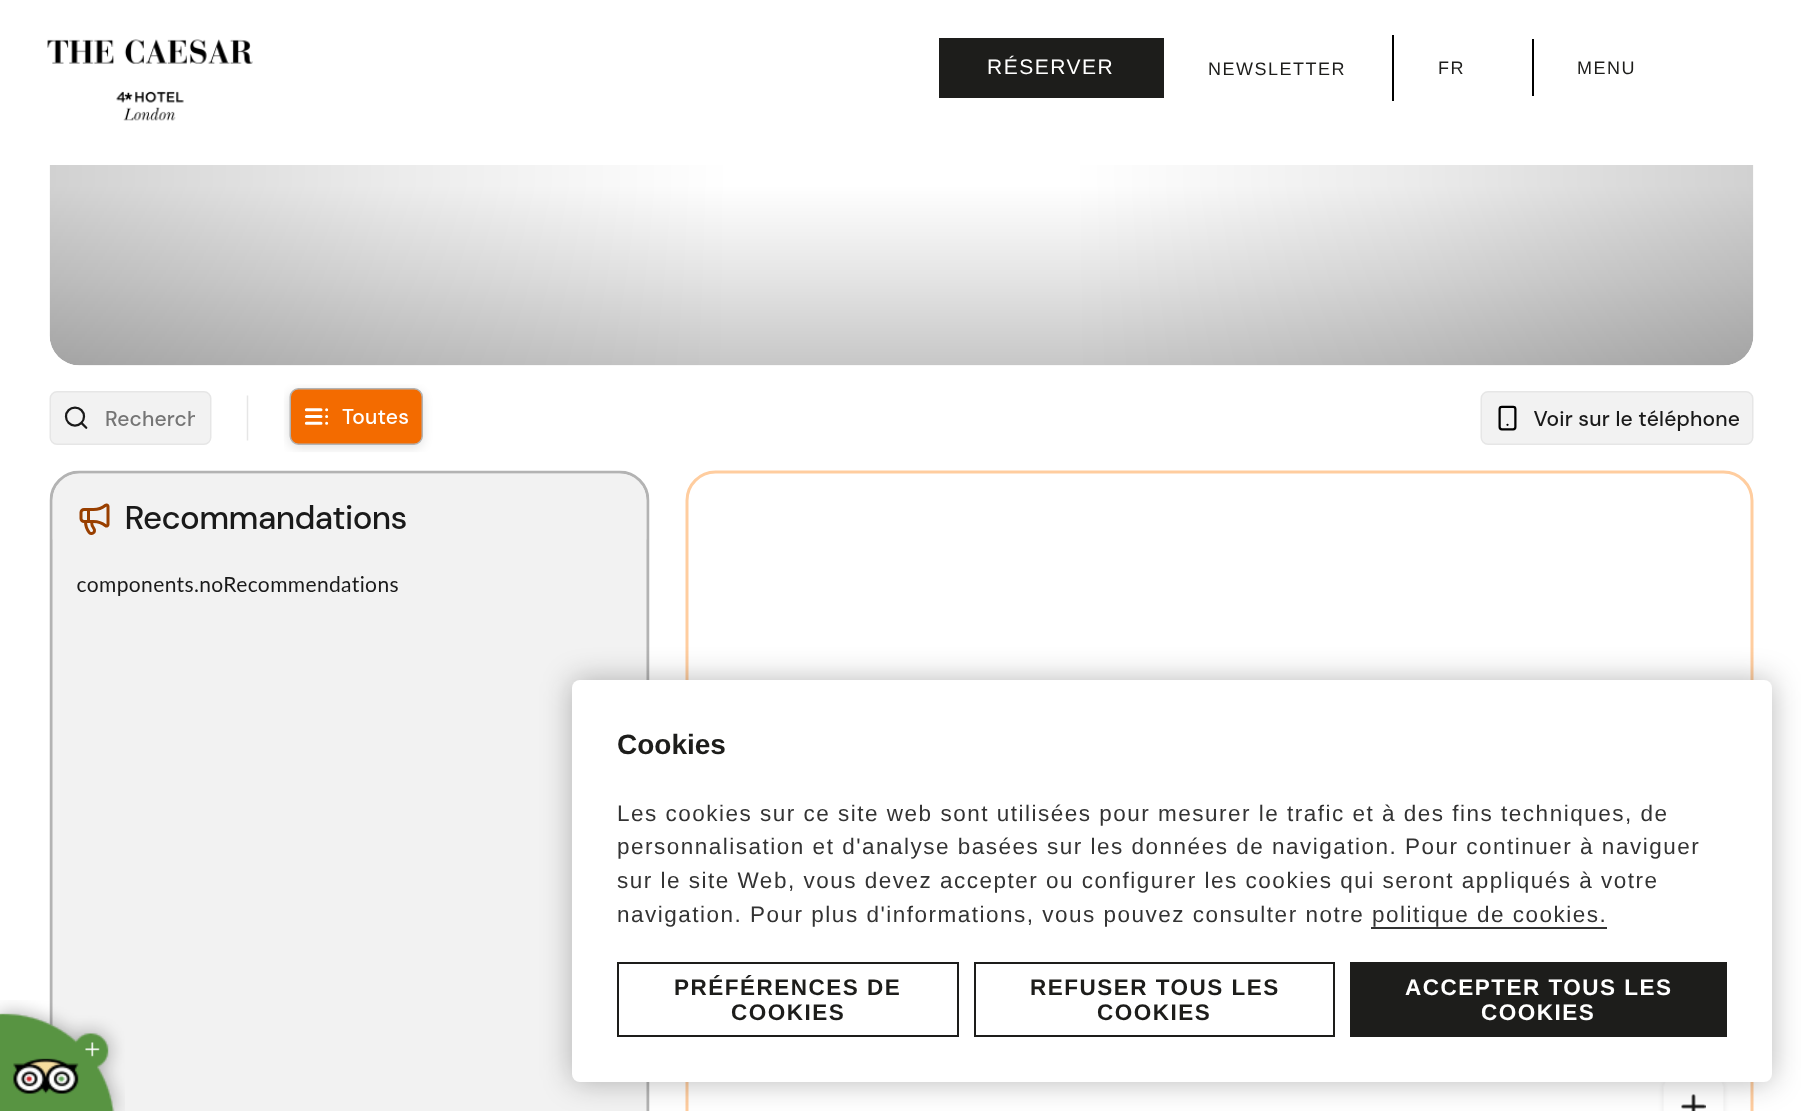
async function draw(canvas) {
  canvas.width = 1801;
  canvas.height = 1111;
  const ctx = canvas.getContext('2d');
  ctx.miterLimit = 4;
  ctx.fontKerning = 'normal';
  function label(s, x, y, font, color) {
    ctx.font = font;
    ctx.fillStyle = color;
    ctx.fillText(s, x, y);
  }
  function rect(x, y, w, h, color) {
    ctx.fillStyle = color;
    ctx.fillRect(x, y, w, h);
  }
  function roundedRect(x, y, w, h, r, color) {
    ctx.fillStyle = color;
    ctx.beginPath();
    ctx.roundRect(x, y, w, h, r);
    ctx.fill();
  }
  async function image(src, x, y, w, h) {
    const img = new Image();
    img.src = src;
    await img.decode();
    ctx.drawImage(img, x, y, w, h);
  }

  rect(0, 0, 1801, 1111, '#fff');
  await image('assets/img1.png', 47, 39, 206, 82);
  rect(939, 38, 225, 60, '#1d1d1b');
  ctx.letterSpacing = '1.5px';
  label('RÉSERVER', 987, 74, '21px Liberation Sans', '#fff');
  rect(1392, 35, 2, 66, '#000');
  label('NEWSLETTER', 1208, 75, '18px Liberation Sans', '#1d1d1b');
  rect(1532, 39, 2, 57, '#000');
  label('FR', 1438, 74, '18px Liberation Sans', '#1d1d1b');
  label('MENU', 1577, 74, '18px Liberation Sans', '#1d1d1b');
  await image('assets/img2.png', 49, 165, 1705, 946);
  ctx.fillStyle = '#1111114d';
  ctx.filter = 'blur(15px)';
  ctx.beginPath();
  ctx.roundRect(572, 680, 1200, 402, 8);
  ctx.fill();
  ctx.filter = 'none';
  roundedRect(572, 680, 1200, 402, 8, '#fff');
  ctx.letterSpacing = '0px';
  label('Cookies', 617, 754, 'bold 28px Liberation Sans', '#1d1d1b');
  ctx.letterSpacing = '1.5px';
  label('Les cookies sur ce site web sont utilisées pour mesurer le trafic et à des fins techniques, de', 617, 821, '22.5px Liberation Sans', '#333');
  label('personnalisation et d\'analyse basées sur les données de navigation. Pour continuer à naviguer', 617, 854, '22.5px Liberation Sans', '#333');
  label('sur le site Web, vous devez accepter ou configurer les cookies qui seront appliqués à votre', 617, 888, '22.5px Liberation Sans', '#333');
  label('navigation. Pour plus d\'informations, vous pouvez consulter notre politique de cookies.', 617, 922, '22.5px Liberation Sans', '#333');
  rect(1371, 927, 236, 2, '#333');
  ctx.strokeStyle = '#1d1d1b';
  ctx.lineWidth = 2;
  ctx.strokeRect(618, 963, 340, 73);
  label('PRÉFÉRENCES DE', 674, 995, 'bold 22.5px Liberation Sans', '#1d1d1b');
  label('COOKIES', 731, 1020, 'bold 22.5px Liberation Sans', '#1d1d1b');
  ctx.strokeRect(975, 963, 359, 73);
  label('REFUSER TOUS LES', 1030, 995, 'bold 22.5px Liberation Sans', '#1d1d1b');
  label('COOKIES', 1097, 1020, 'bold 22.5px Liberation Sans', '#1d1d1b');
  rect(1350, 962, 377, 75, '#1d1d1b');
  label('ACCEPTER TOUS LES', 1405, 995, 'bold 22.5px Liberation Sans', '#fff');
  label('COOKIES', 1481, 1020, 'bold 22.5px Liberation Sans', '#fff');
  await image('assets/img3.png', 0, 1000, 125, 111);
}

draw(document.querySelector('canvas'));
